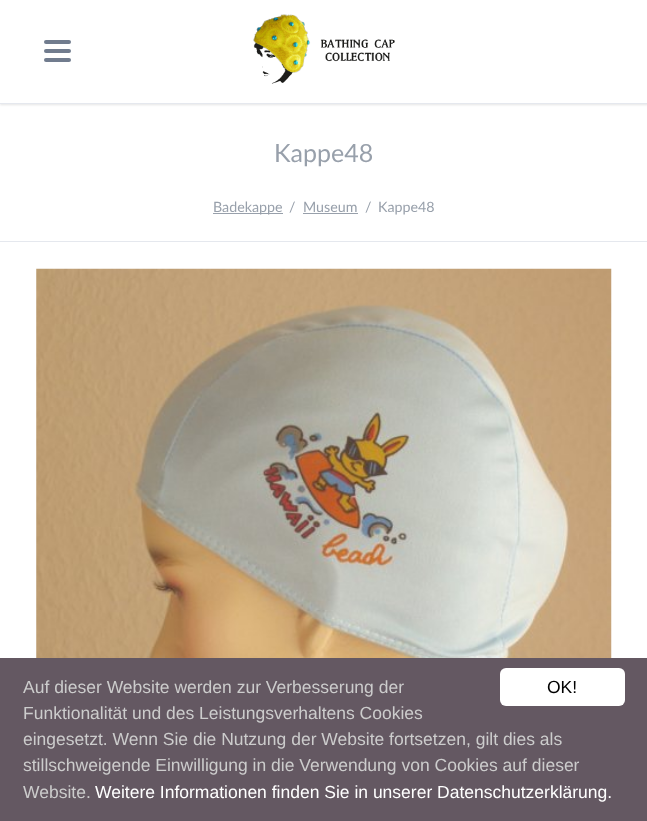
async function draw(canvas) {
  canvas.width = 647;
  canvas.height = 821;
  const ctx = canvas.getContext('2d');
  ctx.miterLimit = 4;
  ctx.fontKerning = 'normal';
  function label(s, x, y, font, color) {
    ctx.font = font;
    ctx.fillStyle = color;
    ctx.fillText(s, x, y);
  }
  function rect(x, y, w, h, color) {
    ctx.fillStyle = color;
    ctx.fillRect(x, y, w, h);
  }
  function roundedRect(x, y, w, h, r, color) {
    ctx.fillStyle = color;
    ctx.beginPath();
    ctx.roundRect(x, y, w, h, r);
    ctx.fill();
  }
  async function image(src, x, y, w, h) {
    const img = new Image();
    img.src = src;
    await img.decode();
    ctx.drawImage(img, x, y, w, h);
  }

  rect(0, 0, 647, 821, '#fff');
  ctx.fillStyle = '#0000001a';
  ctx.filter = 'blur(1px)';
  ctx.beginPath();
  ctx.rect(0, 1, 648, 104);
  ctx.fill();
  ctx.filter = 'none';
  rect(0, 0, 647, 103, '#fff');
  rect(0, 103, 647, 1, '#e5e8ee');
  await image('assets/img1.png', 253, 14, 142, 70);
  roundedRect(44, 58, 27, 4, 2, '#717c8e');
  roundedRect(44, 49, 27, 4, 2, '#717c8e');
  roundedRect(44, 40, 27, 4, 2, '#717c8e');
  rect(0, 241, 647, 1, '#e5e8ee');
  label('Kappe48', 274, 162, '25px Lato', '#98a0ab');
  rect(213, 213, 70, 1, '#98a0ab');
  label('Badekappe', 213, 212, '14.25px Lato', '#98a0ab');
  label('/', 289, 212, '14.25px Lato', '#98a0ab');
  label('Museum', 303, 212, '14.25px Lato', '#98a0ab');
  rect(303, 213, 55, 1, '#98a0ab');
  label('/', 365, 212, '14.25px Lato', '#98a0ab');
  label('Kappe48', 378, 212, '14.25px Lato', '#98a0ab');
  await image('assets/img2.png', 36, 268, 576, 390);
  rect(0, 658, 647, 163, '#645862');
  label('Auf dieser Website werden zur Verbesserung der', 23, 693, '17.5px Liberation Sans', '#ccc');
  label('Funktionalität und des Leistungsverhaltens Cookies', 23, 719, '17.5px Liberation Sans', '#ccc');
  label('eingesetzt. Wenn Sie die Nutzung der Website fortsetzen, gilt dies als', 23, 745, '17.5px Liberation Sans', '#ccc');
  label('stillschweigende Einwilligung in die Verwendung von Cookies auf dieser', 23, 771, '17.5px Liberation Sans', '#ccc');
  label('Website.', 23, 798, '17.5px Liberation Sans', '#ccc');
  label('Weitere Informationen finden Sie in unserer Datenschutzerklärung.', 95, 798, '17.5px Liberation Sans', '#fff');
  roundedRect(500, 668, 125, 38, 6, '#fff');
  label('OK!', 547, 693, '17.5px Liberation Sans', '#000');
}

draw(document.querySelector('canvas'));
